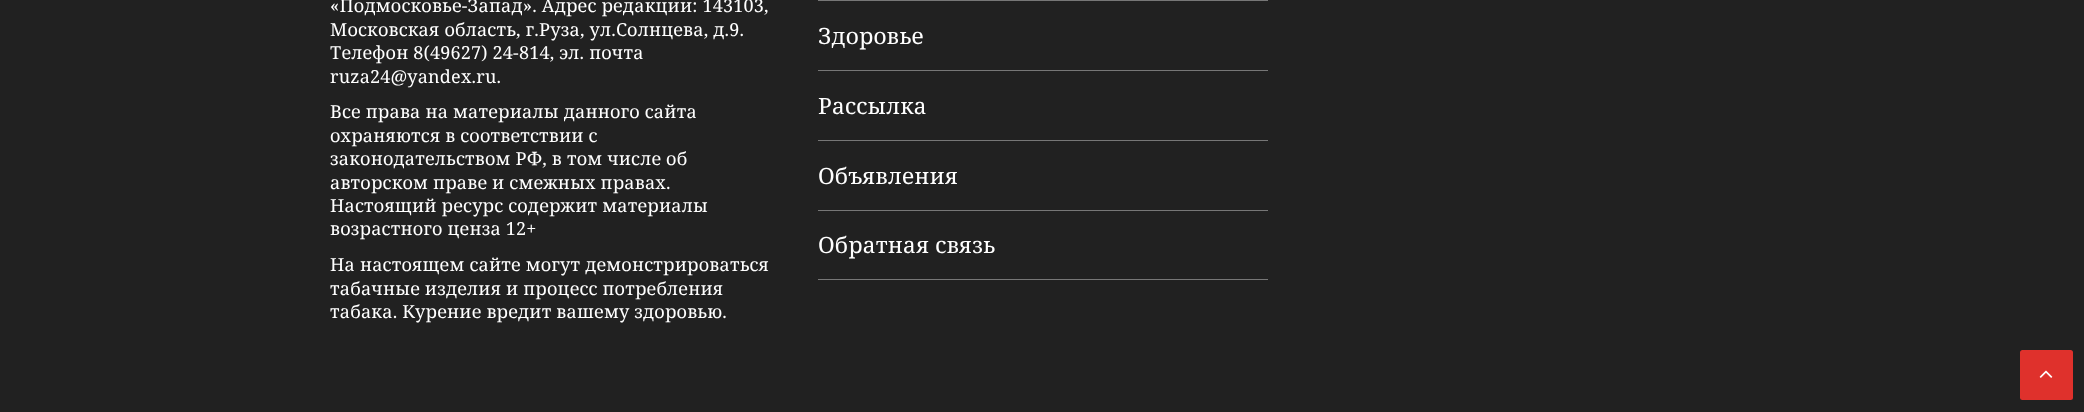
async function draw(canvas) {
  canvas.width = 2084;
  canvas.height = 412;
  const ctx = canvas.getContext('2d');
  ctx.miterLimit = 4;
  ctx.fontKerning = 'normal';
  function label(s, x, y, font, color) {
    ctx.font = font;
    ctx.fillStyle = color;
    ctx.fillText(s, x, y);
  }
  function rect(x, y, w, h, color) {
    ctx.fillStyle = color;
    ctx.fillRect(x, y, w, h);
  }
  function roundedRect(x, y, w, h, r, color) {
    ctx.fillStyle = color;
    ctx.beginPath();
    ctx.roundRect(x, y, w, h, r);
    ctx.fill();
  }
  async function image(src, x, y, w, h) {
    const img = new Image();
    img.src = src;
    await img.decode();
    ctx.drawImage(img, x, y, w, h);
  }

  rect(0, 0, 2084, 412, '#212121');
  ctx.letterSpacing = '0.2px';
  label('«Подмосковье-Запад». Адрес редакции: 143103,', 330, 12, '18px Noto Serif', '#fff');
  label('Московская область, г.Руза, ул.Солнцева, д.9.', 330, 36, '18px Noto Serif', '#fff');
  label('Телефон 8(49627) 24-814, эл. почта', 330, 59, '18px Noto Serif', '#fff');
  label('ruza24@yandex.ru.', 330, 83, '18px Noto Serif', '#fff');
  label('Все права на материалы данного сайта', 330, 118, '18px Noto Serif', '#fff');
  label('охраняются в соответствии с', 330, 142, '18px Noto Serif', '#fff');
  label('законодательством РФ, в том числе об', 330, 165, '18px Noto Serif', '#fff');
  label('авторском праве и смежных правах.', 330, 189, '18px Noto Serif', '#fff');
  label('Настоящий ресурс содержит материалы', 330, 212, '18px Noto Serif', '#fff');
  label('возрастного ценза 12+', 330, 235, '18px Noto Serif', '#fff');
  label('На настоящем сайте могут демонстрироваться', 330, 271, '18px Noto Serif', '#fff');
  label('табачные изделия и процесс потребления', 330, 295, '18px Noto Serif', '#fff');
  label('табака. Курение вредит вашему здоровью.', 330, 318, '18px Noto Serif', '#fff');
  rect(818, 0, 450, 1, '#777');
  rect(818, 70, 450, 1, '#777');
  label('Здоровье', 818, 44, '22.5px Noto Serif', '#fff');
  rect(818, 140, 450, 1, '#777');
  label('Рассылка', 818, 114, '22.5px Noto Serif', '#fff');
  rect(818, 210, 450, 1, '#777');
  label('Объявления', 818, 184, '22.5px Noto Serif', '#fff');
  rect(818, 279, 450, 1, '#777');
  label('Обратная связь', 818, 253, '22.5px Noto Serif', '#fff');
  roundedRect(2020, 350, 53, 50, 2.5, '#df312c');
  await image('assets/img1.png', 2039, 370, 14, 8);
}

draw(document.querySelector('canvas'));
